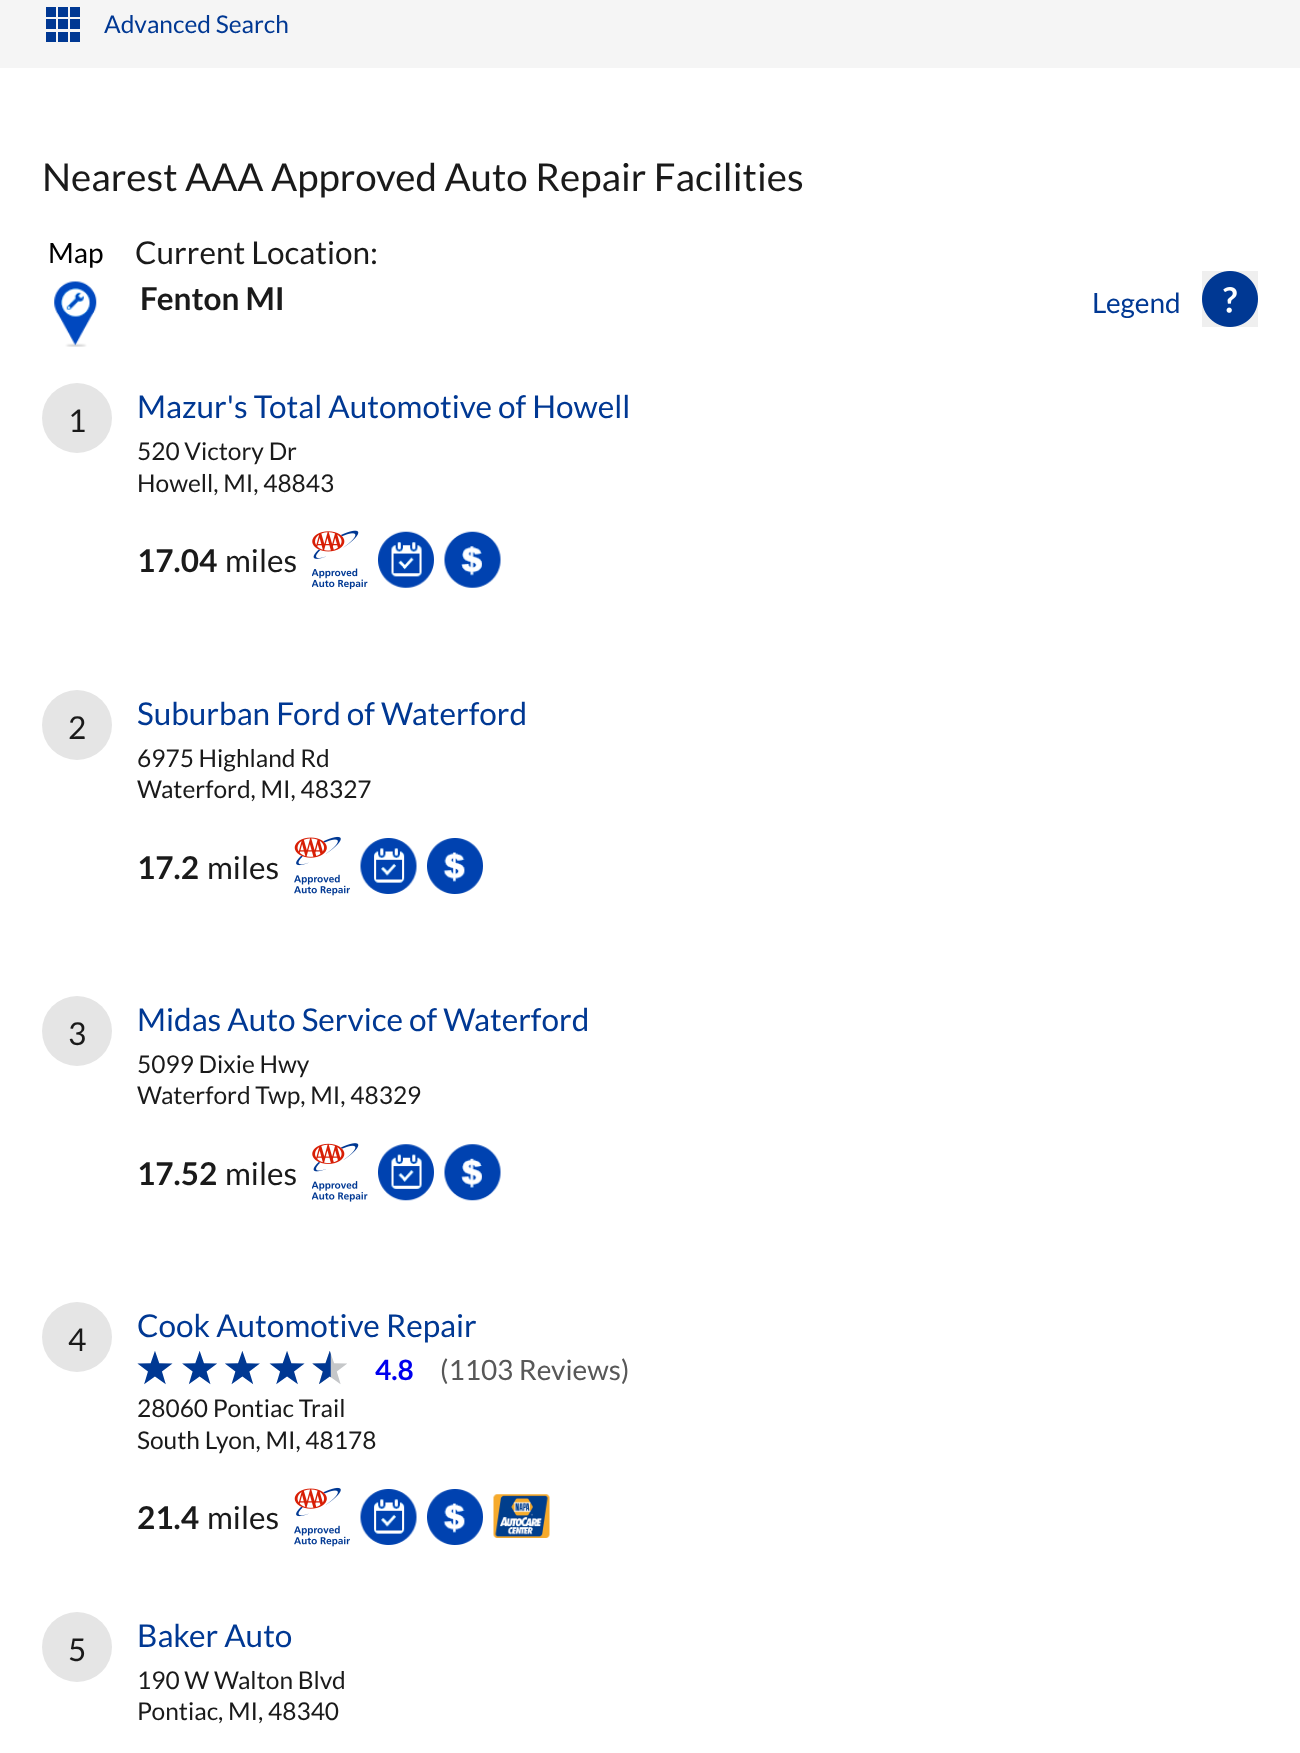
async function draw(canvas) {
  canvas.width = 1300;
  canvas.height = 1753;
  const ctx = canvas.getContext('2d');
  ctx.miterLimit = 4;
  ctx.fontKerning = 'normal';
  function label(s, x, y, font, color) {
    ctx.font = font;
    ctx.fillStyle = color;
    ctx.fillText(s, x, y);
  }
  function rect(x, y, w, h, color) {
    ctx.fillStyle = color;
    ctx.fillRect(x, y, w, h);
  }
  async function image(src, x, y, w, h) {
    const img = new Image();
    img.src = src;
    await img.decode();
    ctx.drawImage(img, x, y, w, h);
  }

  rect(0, 0, 1300, 1753, '#fff');
  rect(0, 0, 1300, 68, '#f5f5f5');
  await image('assets/img1.png', 46, 7, 34, 35);
  label('Advanced Search', 104, 33, '24.5px Lato', '#003893');
  label('Nearest AAA Approved Auto Repair Facilities', 42, 191, '38.5px Lato', '#1a1a1a');
  await image('assets/img2.png', 54, 281, 43, 66);
  label('Map', 48, 263, '28px Lato', '#000');
  label('Current Location:', 135, 264, '31.5px Lato', '#1a1a1a');
  label('Fenton MI', 140, 310, 'bold 31.5px Lato', '#1a1a1a');
  label('Legend', 1092, 313, '28px Lato', '#003893');
  rect(1202, 271, 56, 56, '#efefef');
  await image('assets/img3.png', 1202, 271, 56, 56);
  ctx.fillStyle = '#e5e5e5';
  ctx.beginPath();
  ctx.arc(77, 418, 35, 0, 2 * Math.PI);
  ctx.fill();
  label('1', 68, 432, '31.5px Lato', '#1a1a1a');
  label('Mazur\'s Total Automotive of Howell', 137, 418, '31.5px Lato', '#003893');
  label('520 Victory Dr', 137, 460, '24.5px Lato', '#1a1a1a');
  label('Howell, MI, 48843', 137, 492, '24.5px Lato', '#1a1a1a');
  label('17.04', 137, 572, 'bold 31.5px Lato', '#1a1a1a');
  label('miles', 225, 572, '31.5px Lato', '#1a1a1a');
  await image('assets/img4.png', 312, 530, 56, 60);
  await image('assets/img5.png', 378, 531, 56, 57);
  await image('assets/img6.png', 444, 531, 57, 57);
  ctx.fillStyle = '#e5e5e5';
  ctx.beginPath();
  ctx.arc(77, 725, 35, 0, 2 * Math.PI);
  ctx.fill();
  label('2', 68, 739, '31.5px Lato', '#1a1a1a');
  label('Suburban Ford of Waterford', 137, 725, '31.5px Lato', '#003893');
  label('6975 Highland Rd', 137, 767, '24.5px Lato', '#1a1a1a');
  label('Waterford, MI, 48327', 137, 798, '24.5px Lato', '#1a1a1a');
  label('17.2', 137, 879, 'bold 31.5px Lato', '#1a1a1a');
  label('miles', 207, 879, '31.5px Lato', '#1a1a1a');
  await image('assets/img7.png', 294, 836, 56, 60);
  await image('assets/img8.png', 360, 838, 57, 56);
  await image('assets/img9.png', 427, 838, 56, 56);
  ctx.fillStyle = '#e5e5e5';
  ctx.beginPath();
  ctx.arc(77, 1031, 35, 0, 2 * Math.PI);
  ctx.fill();
  label('3', 68, 1045, '31.5px Lato', '#1a1a1a');
  label('Midas Auto Service of Waterford', 137, 1031, '31.5px Lato', '#003893');
  label('5099 Dixie Hwy', 137, 1073, '24.5px Lato', '#1a1a1a');
  label('Waterford Twp, MI, 48329', 137, 1104, '24.5px Lato', '#1a1a1a');
  label('17.52', 137, 1185, 'bold 31.5px Lato', '#1a1a1a');
  label('miles', 225, 1185, '31.5px Lato', '#1a1a1a');
  await image('assets/img10.png', 312, 1143, 56, 59);
  await image('assets/img11.png', 378, 1144, 56, 57);
  await image('assets/img12.png', 444, 1144, 57, 57);
  ctx.fillStyle = '#e5e5e5';
  ctx.beginPath();
  ctx.arc(77, 1337, 35, 0, 2 * Math.PI);
  ctx.fill();
  label('4', 68, 1351, '31.5px Lato', '#1a1a1a');
  label('Cook Automotive Repair', 137, 1337, '31.5px Lato', '#003893');
  await image('assets/img13.png', 137, 1351, 210, 34);
  label('4.8', 375, 1380, 'bold 28px Lato', '#00e');
  label('(1103 Reviews)', 440, 1380, '28px Lato', '#585858');
  label('28060 Pontiac Trail', 137, 1417, '24.5px Lato', '#1a1a1a');
  label('South Lyon, MI, 48178', 137, 1449, '24.5px Lato', '#1a1a1a');
  label('21.4', 137, 1529, 'bold 31.5px Lato', '#1a1a1a');
  label('miles', 207, 1529, '31.5px Lato', '#1a1a1a');
  await image('assets/img7.png', 294, 1487, 56, 60);
  await image('assets/img8.png', 360, 1489, 57, 56);
  await image('assets/img9.png', 427, 1489, 56, 56);
  await image('assets/img14.png', 493, 1494, 57, 44);
  ctx.fillStyle = '#e5e5e5';
  ctx.beginPath();
  ctx.arc(77, 1647, 35, 0, 2 * Math.PI);
  ctx.fill();
  label('5', 68, 1661, '31.5px Lato', '#1a1a1a');
  label('Baker Auto', 137, 1647, '31.5px Lato', '#003893');
  label('190 W Walton Blvd', 137, 1689, '24.5px Lato', '#1a1a1a');
  label('Pontiac, MI, 48340', 137, 1720, '24.5px Lato', '#1a1a1a');
}

draw(document.querySelector('canvas'));
